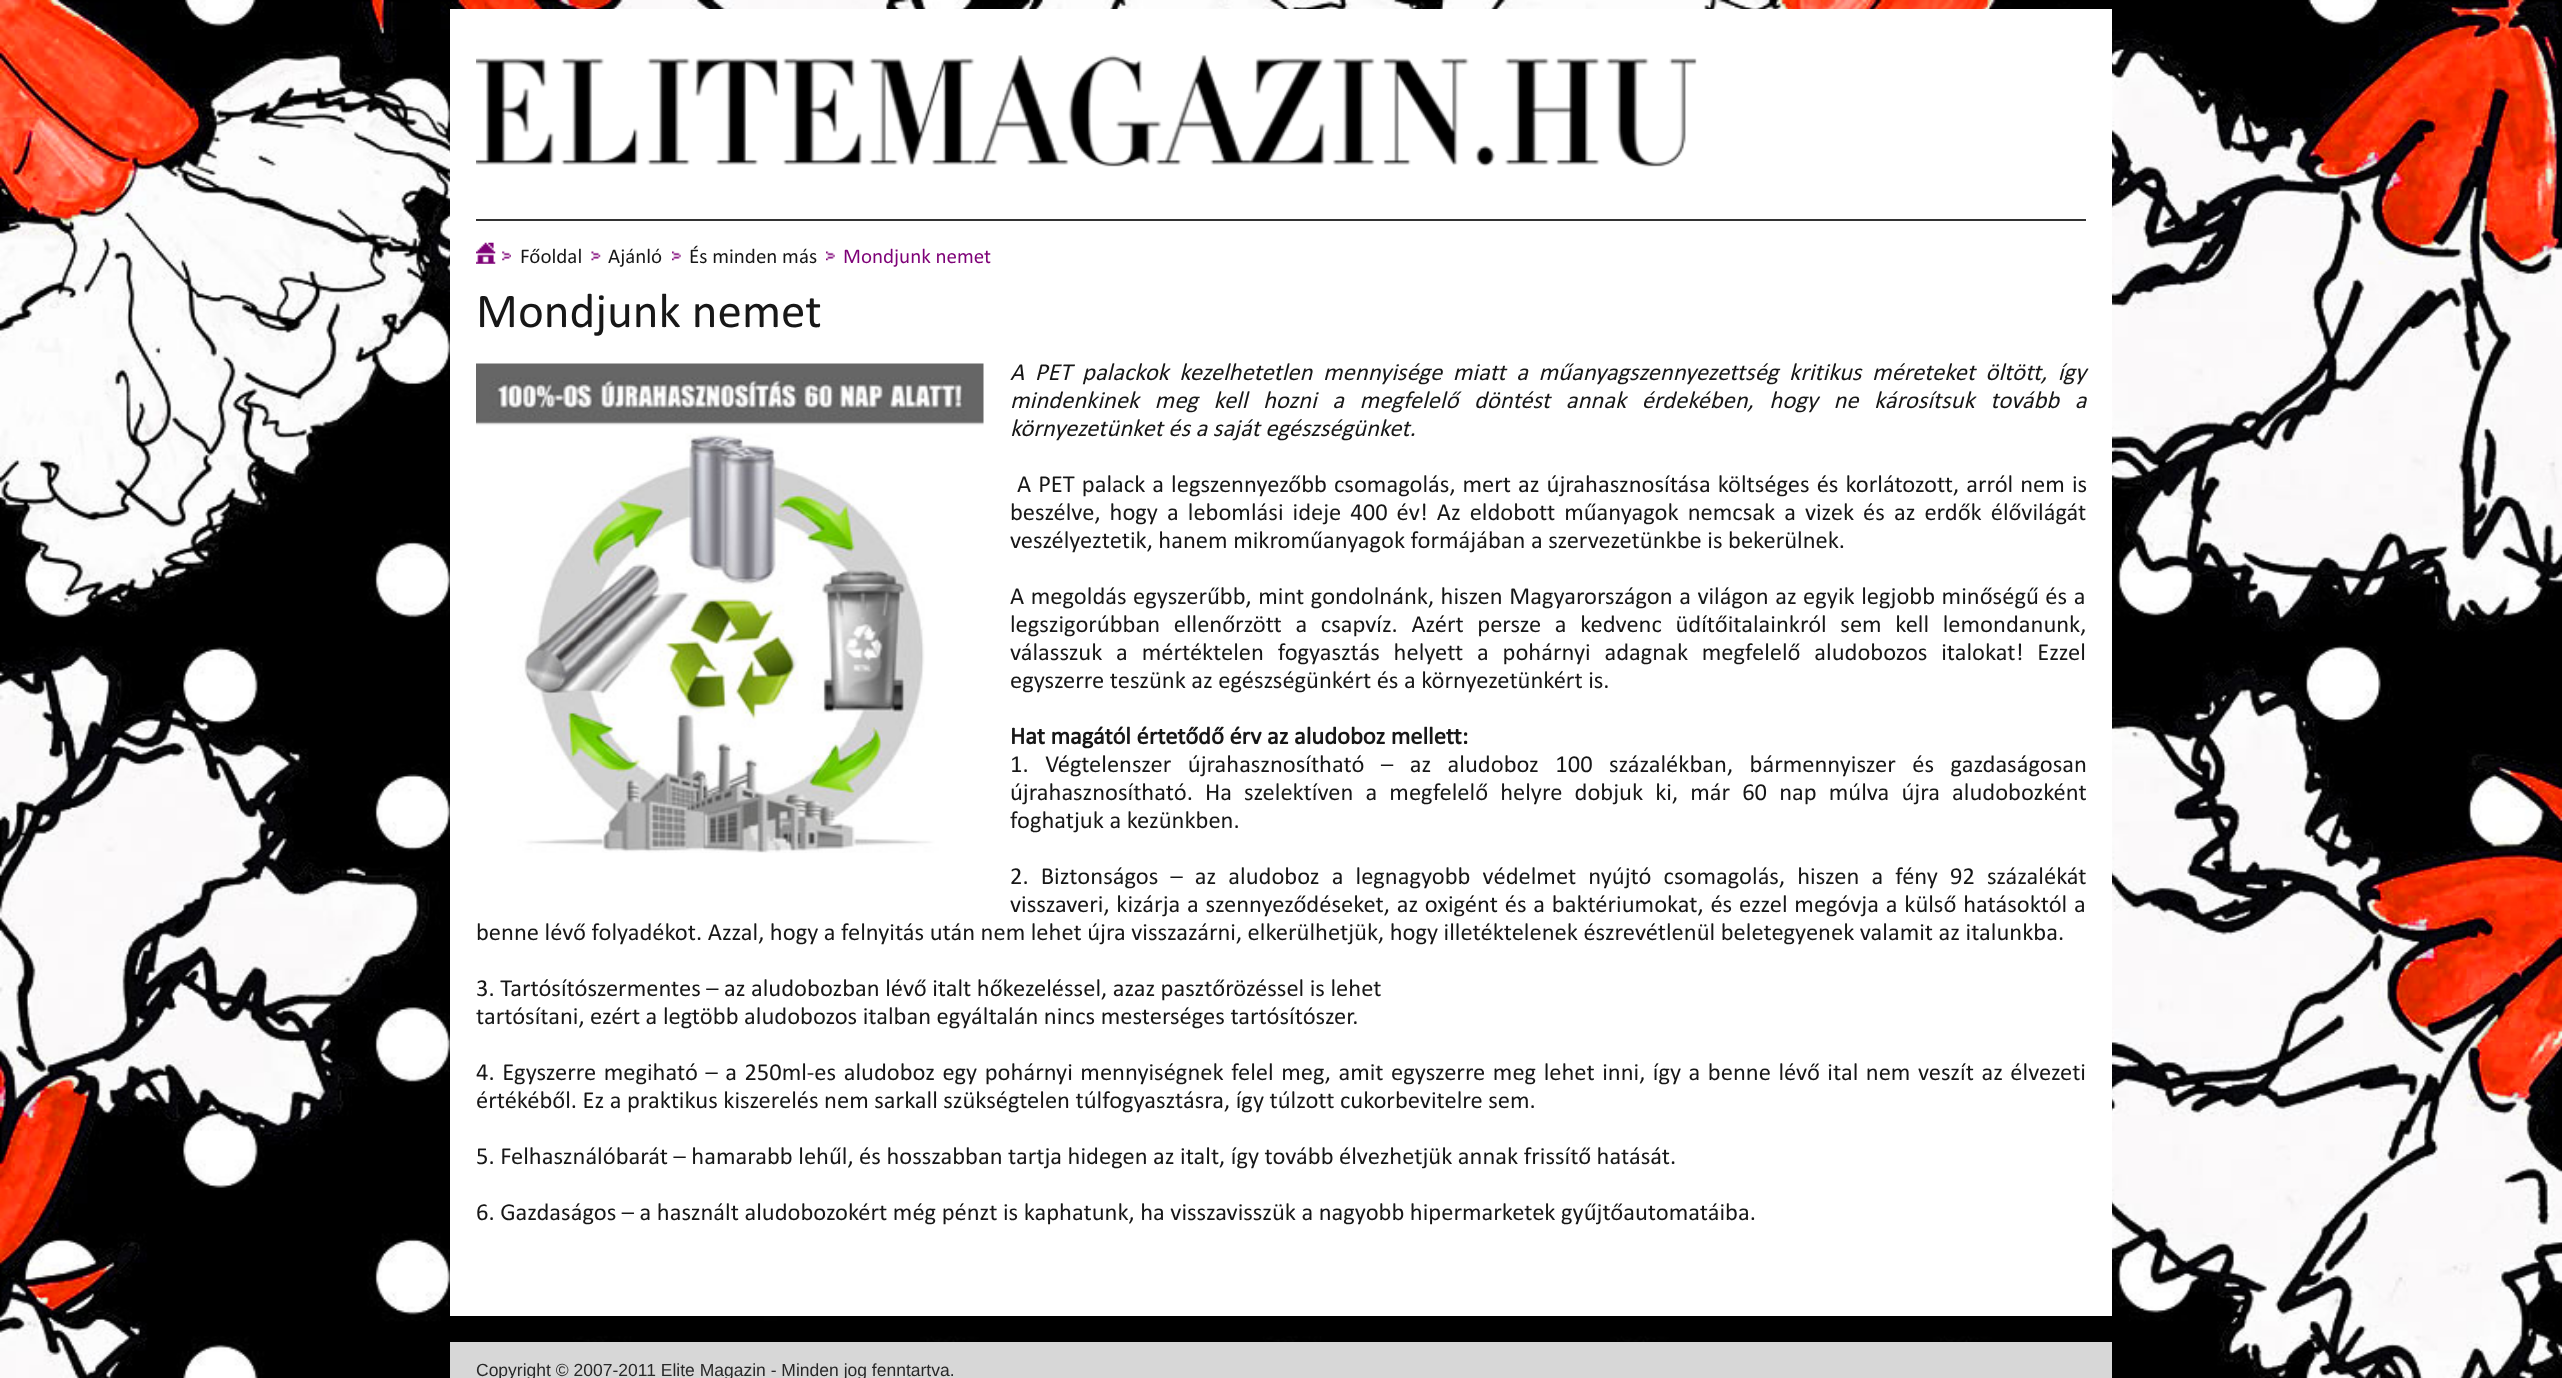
async function draw(canvas) {
  canvas.width = 2562;
  canvas.height = 1378;
  const ctx = canvas.getContext('2d');
  ctx.miterLimit = 4;
  ctx.fontKerning = 'normal';
  function label(s, x, y, font, color) {
    ctx.font = font;
    ctx.fillStyle = color;
    ctx.fillText(s, x, y);
  }
  function rect(x, y, w, h, color) {
    ctx.fillStyle = color;
    ctx.fillRect(x, y, w, h);
  }
  async function image(src, x, y, w, h) {
    const img = new Image();
    img.src = src;
    await img.decode();
    ctx.drawImage(img, x, y, w, h);
  }

  rect(0, 0, 2562, 1378, '#fff');
  await image('assets/img1.png', 0, 0, 2562, 1378);
  rect(450, 9, 1662, 1307, '#fff');
  rect(476, 219, 1610, 2, '#333');
  await image('assets/img2.png', 476, 55, 1221, 112);
  await image('assets/img3.png', 476, 242, 20, 22);
  await image('assets/img4.png', 502, 251, 9, 10);
  label('Főoldal', 520, 263, '21px Calibri', '#171717');
  await image('assets/img5.png', 591, 251, 10, 10);
  label('Ajánló', 608, 263, '21px Calibri', '#171717');
  await image('assets/img6.png', 672, 251, 9, 10);
  label('És minden más', 689, 263, '21px Calibri', '#171717');
  await image('assets/img6.png', 826, 251, 9, 10);
  label('Mondjunk nemet', 843, 263, '21px Calibri', '#7e0177');
  label('Mondjunk nemet', 476, 327, '49px Calibri', '#171717');
  await image('assets/img7.png', 476, 363, 508, 490);
  ctx.wordSpacing = '5.1px';
  label('A PET palackok kezelhetetlen mennyisége miatt a műanyagszennyezettség kritikus méreteket öltött, így', 1010, 380, 'italic 24.5px Calibri', '#171717');
  ctx.wordSpacing = '10.1px';
  label('mindenkinek meg kell hozni a megfelelő döntést annak érdekében, hogy ne károsítsuk tovább a', 1010, 408, 'italic 24.5px Calibri', '#171717');
  ctx.wordSpacing = '0px';
  label('környezetünket és a saját egészségünket.', 1010, 436, 'italic 24.5px Calibri', '#171717');
  ctx.wordSpacing = '1.5px';
  label('A PET palack a legszennyezőbb csomagolás, mert az újrahasznosítása költséges és korlátozott, arról nem is', 1017, 492, '24.5px Calibri', '#171717');
  ctx.wordSpacing = '3.5px';
  label('beszélve, hogy a lebomlási ideje 400 év! Az eldobott műanyagok nemcsak a vizek és az erdők élővilágát', 1010, 520, '24.5px Calibri', '#171717');
  ctx.wordSpacing = '0px';
  label('veszélyeztetik, hanem mikroműanyagok formájában a szervezetünkbe is bekerülnek.', 1010, 548, '24.5px Calibri', '#171717');
  ctx.wordSpacing = '1px';
  label('A megoldás egyszerűbb, mint gondolnánk, hiszen Magyarországon a világon az egyik legjobb minőségű és a', 1010, 604, '24.5px Calibri', '#171717');
  ctx.wordSpacing = '8.1px';
  label('legszigorúbban ellenőrzött a csapvíz. Azért persze a kedvenc üdítőitalainkról sem kell lemondanunk,', 1010, 632, '24.5px Calibri', '#171717');
  ctx.wordSpacing = '8.25px';
  label('válasszuk a mértéktelen fogyasztás helyett a pohárnyi adagnak megfelelő aludobozos italokat! Ezzel', 1010, 660, '24.5px Calibri', '#171717');
  ctx.wordSpacing = '0px';
  label('egyszerre teszünk az egészségünkért és a környezetünkért is.', 1010, 688, '24.5px Calibri', '#171717');
  label('Hat magától értetődő érv az aludoboz mellett:', 1010, 744, 'bold 24.5px Calibri', '#171717');
  ctx.wordSpacing = '11px';
  label('1. Végtelenszer újrahasznosítható – az aludoboz 100 százalékban, bármennyiszer és gazdaságosan', 1010, 772, '24.5px Calibri', '#171717');
  ctx.wordSpacing = '6.6px';
  label('újrahasznosítható. Ha szelektíven a megfelelő helyre dobjuk ki, már 60 nap múlva újra aludobozként', 1010, 800, '24.5px Calibri', '#171717');
  ctx.wordSpacing = '0px';
  label('foghatjuk a kezünkben.', 1010, 828, '24.5px Calibri', '#171717');
  ctx.wordSpacing = '6.6px';
  label('2. Biztonságos – az aludoboz a legnagyobb védelmet nyújtó csomagolás, hiszen a fény 92 százalékát', 1010, 884, '24.5px Calibri', '#171717');
  ctx.wordSpacing = '1.25px';
  label('visszaveri, kizárja a szennyeződéseket, az oxigént és a baktériumokat, és ezzel megóvja a külső hatásoktól a', 1010, 912, '24.5px Calibri', '#171717');
  ctx.wordSpacing = '0px';
  label('benne lévő folyadékot. Azzal, hogy a felnyitás után nem lehet újra visszazárni, elkerülhetjük, hogy illetéktelenek észrevétlenül beletegyenek valamit az italunkba.', 476, 940, '24.5px Calibri', '#171717');
  label('3. Tartósítószermentes – az aludobozban lévő italt hőkezeléssel, azaz pasztőrözéssel is lehet', 476, 996, '24.5px Calibri', '#171717');
  label('tartósítani, ezért a legtöbb aludobozos italban egyáltalán nincs mesterséges tartósítószer.', 476, 1024, '24.5px Calibri', '#171717');
  ctx.wordSpacing = '2px';
  label('4. Egyszerre megiható – a 250ml-es aludoboz egy pohárnyi mennyiségnek felel meg, amit egyszerre meg lehet inni, így a benne lévő ital nem veszít az élvezeti', 476, 1080, '24.5px Calibri', '#171717');
  ctx.wordSpacing = '0px';
  label('értékéből. Ez a praktikus kiszerelés nem sarkall szükségtelen túlfogyasztásra, így túlzott cukorbevitelre sem.', 476, 1108, '24.5px Calibri', '#171717');
  label('5. Felhasználóbarát – hamarabb lehűl, és hosszabban tartja hidegen az italt, így tovább élvezhetjük annak frissítő hatását.', 476, 1164, '24.5px Calibri', '#171717');
  label('6. Gazdaságos – a használt aludobozokért még pénzt is kaphatunk, ha visszavisszük a nagyobb hipermarketek gyűjtőautomatáiba.', 476, 1220, '24.5px Calibri', '#171717');
  rect(450, 1342, 1662, 36, '#d7d7d7');
  label('Copyright © 2007-2011 Elite Magazin - Minden jog fenntartva.', 476, 1376, '17.5px Liberation Sans', '#282828');
}

draw(document.querySelector('canvas'));
